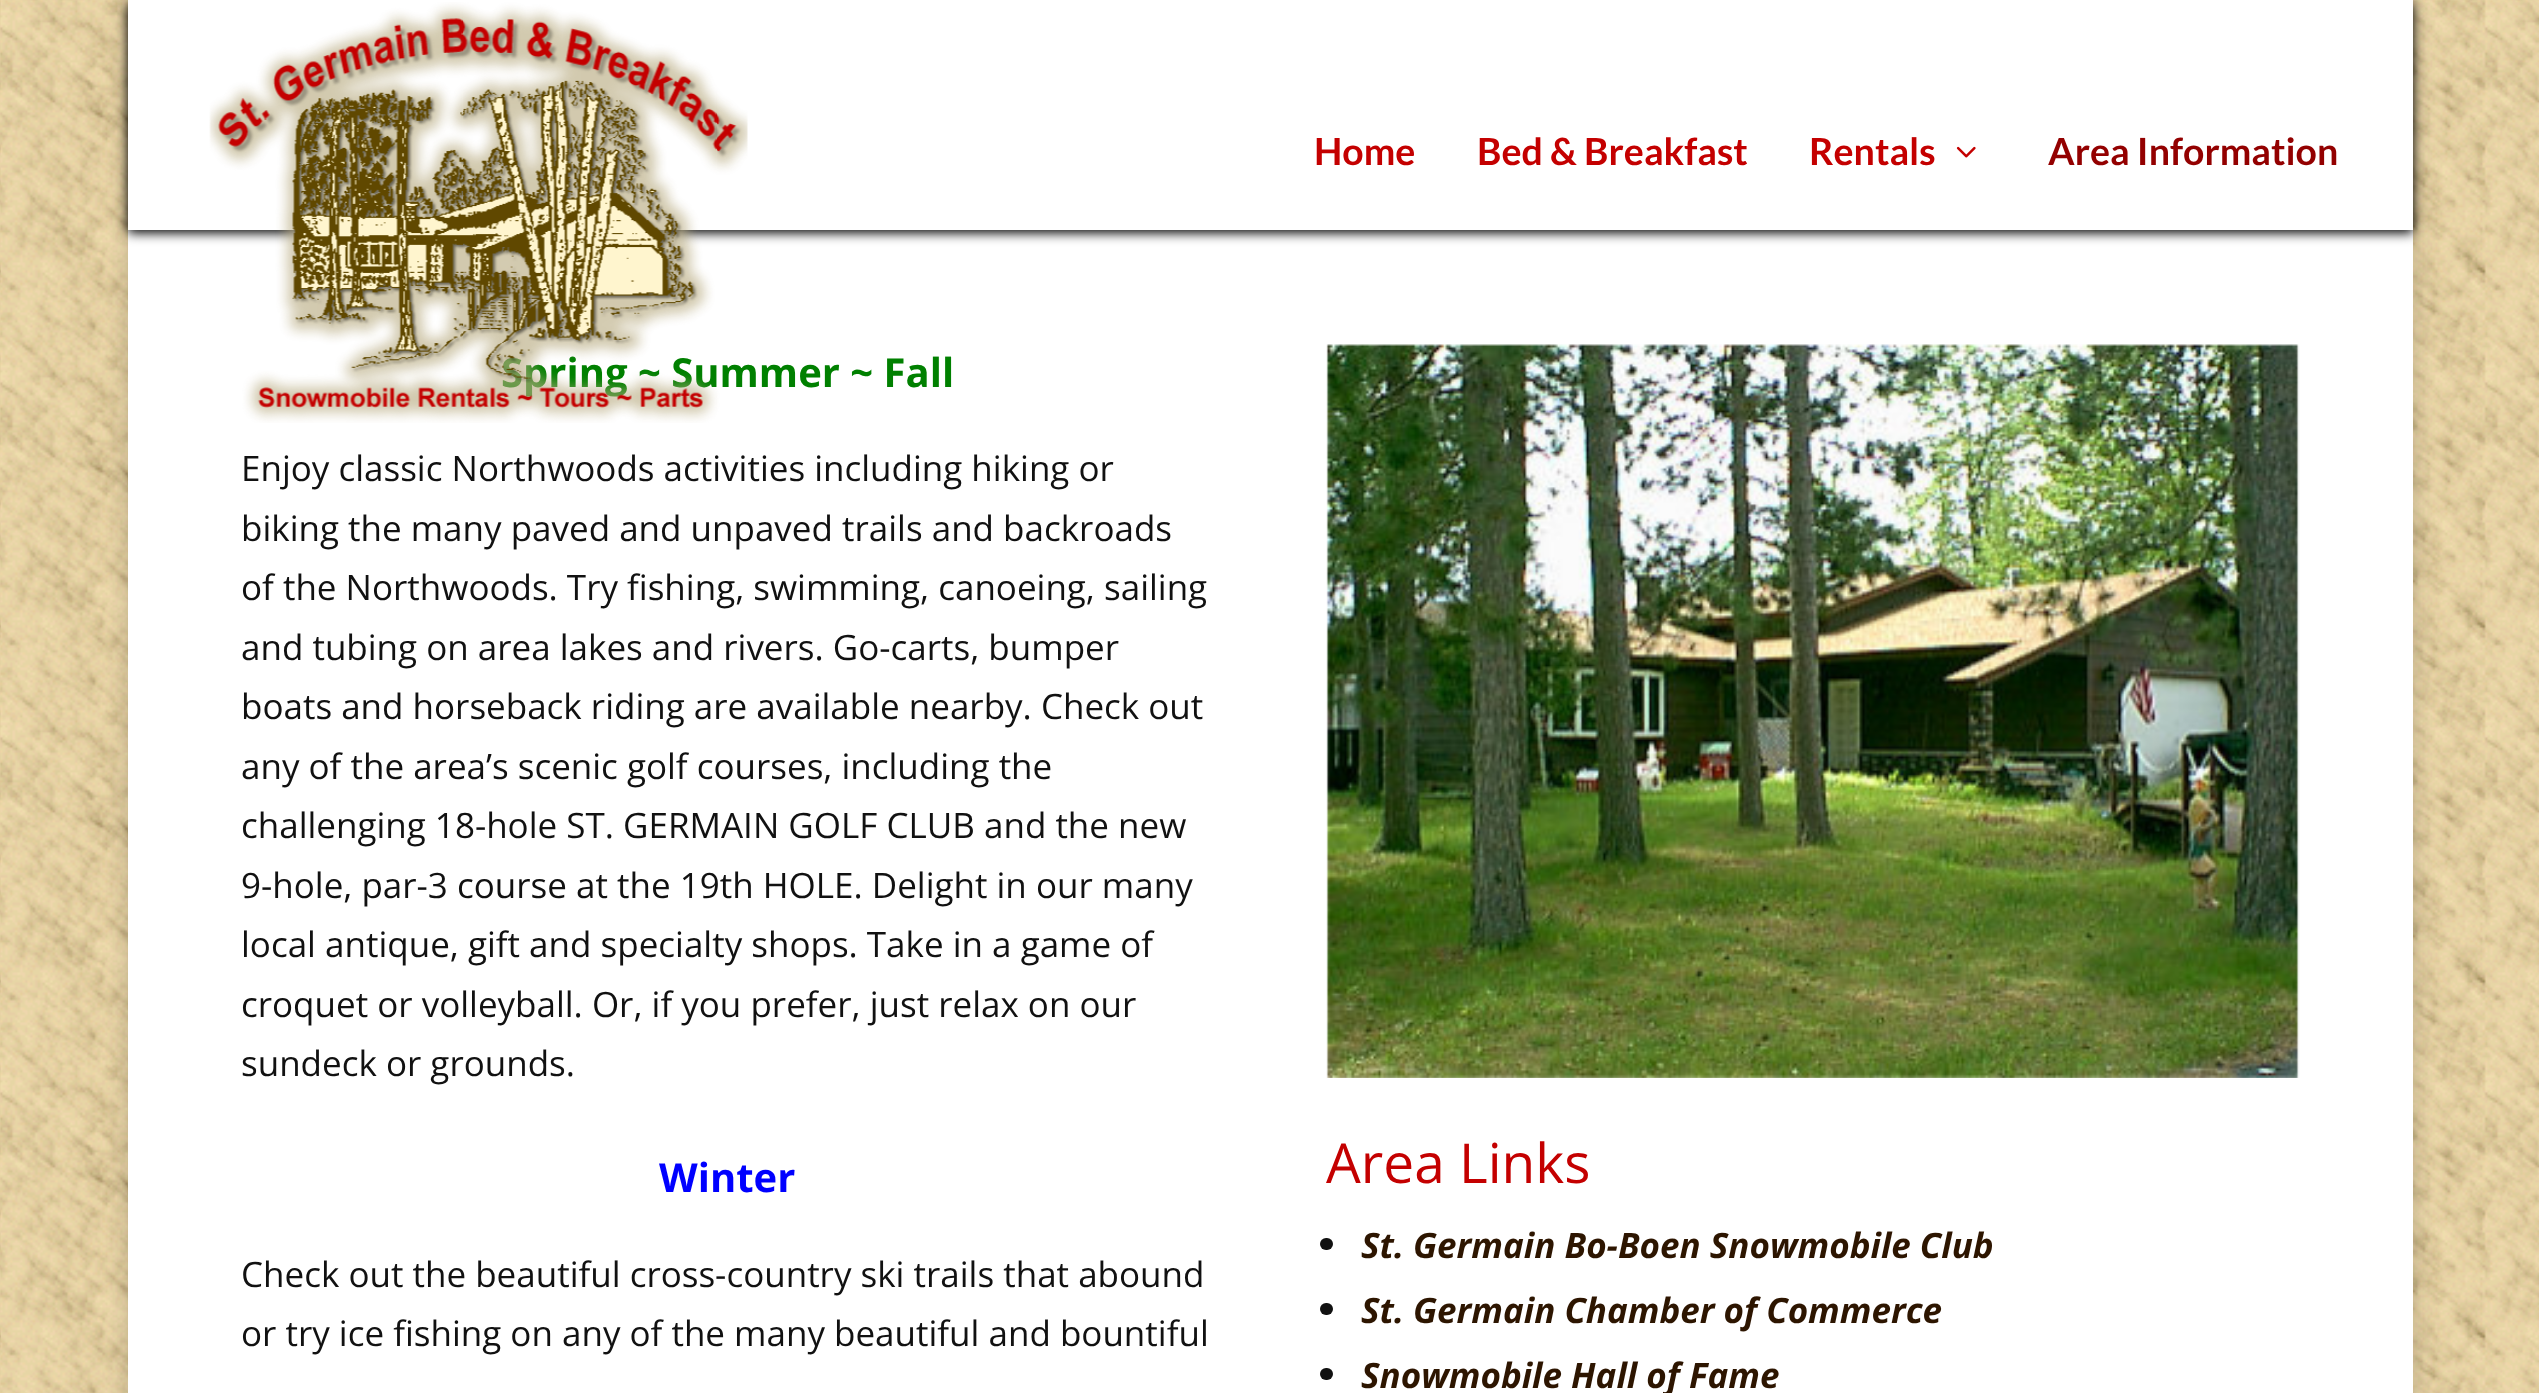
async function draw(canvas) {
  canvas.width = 2539;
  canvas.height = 1393;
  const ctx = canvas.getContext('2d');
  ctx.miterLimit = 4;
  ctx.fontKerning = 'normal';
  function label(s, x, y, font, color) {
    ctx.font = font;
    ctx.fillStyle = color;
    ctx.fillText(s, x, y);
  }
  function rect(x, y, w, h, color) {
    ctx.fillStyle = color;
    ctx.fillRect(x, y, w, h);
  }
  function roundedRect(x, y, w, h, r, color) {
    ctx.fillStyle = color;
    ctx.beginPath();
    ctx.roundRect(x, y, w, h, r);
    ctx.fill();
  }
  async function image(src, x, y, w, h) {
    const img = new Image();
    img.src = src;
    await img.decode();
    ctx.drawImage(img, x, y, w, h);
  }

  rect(0, 0, 2539, 1393, '#fff');
  await image('assets/img1.png', 0, 0, 2539, 1393);
  ctx.fillStyle = '#00000033';
  ctx.filter = 'blur(12.5px)';
  ctx.beginPath();
  ctx.rect(128, 0, 2285, 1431);
  ctx.fill();
  ctx.filter = 'none';
  rect(128, 230, 2285, 1163, '#fff');
  ctx.fillStyle = '#000';
  ctx.filter = 'blur(6px)';
  ctx.beginPath();
  ctx.rect(128, 3, 2285, 230);
  ctx.fill();
  ctx.filter = 'none';
  rect(128, 0, 2285, 230, '#fff');
  label('Spring ~ Summer ~ Fall', 501, 387, 'bold 40px Open Sans', '#008000');
  await image('assets/img2.png', 209, 2, 539, 421);
  label('Home', 1314, 165, 'bold 37.5px Lato', '#c40000');
  label('Bed & Breakfast', 1477, 165, 'bold 37.5px Lato', '#c40000');
  label('Rentals', 1809, 165, 'bold 37.5px Lato', '#c40000');
  await image('assets/img3.png', 1956, 146, 20, 12);
  label('Area Information', 2048, 165, 'bold 37.5px Lato', '#930000');
  label('Enjoy classic Northwoods activities including hiking or', 241, 481, '35px Open Sans', '#111');
  label('biking the many paved and unpaved trails and backroads', 241, 541, '35px Open Sans', '#111');
  label('of the Northwoods. Try fishing, swimming, canoeing, sailing', 241, 600, '35px Open Sans', '#111');
  label('and tubing on area lakes and rivers. Go-carts, bumper', 241, 660, '35px Open Sans', '#111');
  label('boats and horseback riding are available nearby. Check out', 241, 719, '35px Open Sans', '#111');
  label('any of the area’s scenic golf courses, including the', 241, 779, '35px Open Sans', '#111');
  label('challenging 18-hole ST. GERMAIN GOLF CLUB and the new', 241, 838, '35px Open Sans', '#111');
  label('9-hole, par-3 course at the 19th HOLE. Delight in our many', 241, 898, '35px Open Sans', '#111');
  label('local antique, gift and specialty shops. Take in a game of', 241, 957, '35px Open Sans', '#111');
  label('croquet or volleyball. Or, if you prefer, just relax on our', 241, 1017, '35px Open Sans', '#111');
  label('sundeck or grounds.', 241, 1076, '35px Open Sans', '#111');
  label('Winter', 659, 1192, 'bold 40px Open Sans', '#00f');
  label('Check out the beautiful cross-country ski trails that abound', 241, 1287, '35px Open Sans', '#111');
  label('or try ice fishing on any of the many beautiful and bountiful', 241, 1346, '35px Open Sans', '#111');
  await image('assets/img4.png', 1326, 344, 974, 734);
  label('Area Links', 1326, 1183, '55px Open Sans', '#c40000');
  roundedRect(1320, 1238, 13, 12, 6, '#111');
  label('St. Germain Bo-Boen Snowmobile Club', 1361, 1258, 'italic bold 35px Open Sans', '#2d1500');
  roundedRect(1320, 1303, 13, 12, 6, '#111');
  label('St. Germain Chamber of Commerce', 1361, 1323, 'italic bold 35px Open Sans', '#2d1500');
  roundedRect(1320, 1368, 13, 12, 6, '#111');
  label('Snowmobile Hall of Fame', 1361, 1388, 'italic bold 35px Open Sans', '#2d1500');
}

draw(document.querySelector('canvas'));
